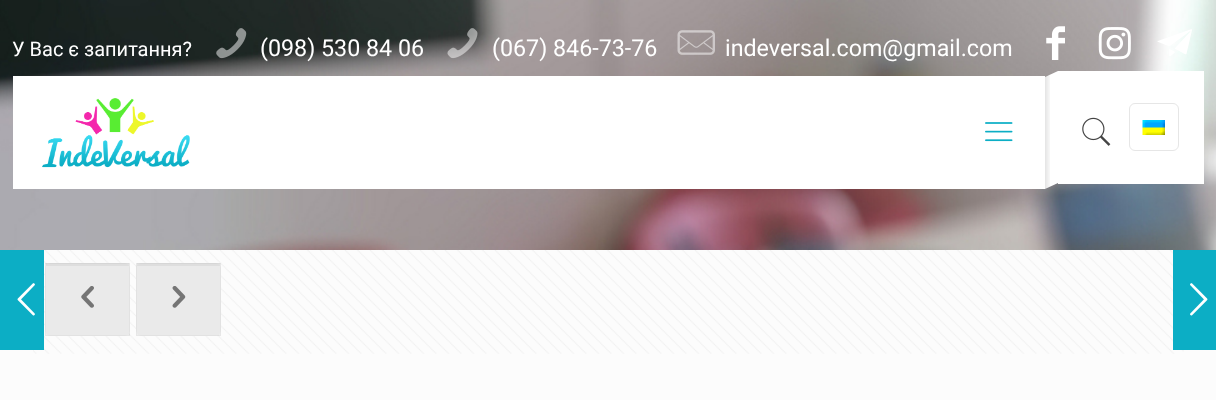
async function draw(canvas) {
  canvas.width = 1216;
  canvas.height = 400;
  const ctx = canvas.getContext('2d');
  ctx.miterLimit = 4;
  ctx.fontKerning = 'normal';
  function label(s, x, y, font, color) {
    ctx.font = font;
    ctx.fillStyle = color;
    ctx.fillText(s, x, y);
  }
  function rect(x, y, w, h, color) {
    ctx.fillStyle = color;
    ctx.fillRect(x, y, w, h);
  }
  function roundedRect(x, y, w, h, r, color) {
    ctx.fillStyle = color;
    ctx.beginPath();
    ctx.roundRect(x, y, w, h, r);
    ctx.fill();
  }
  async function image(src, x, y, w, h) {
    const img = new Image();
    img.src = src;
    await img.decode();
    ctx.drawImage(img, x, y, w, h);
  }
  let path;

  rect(0, 0, 1216, 400, '#fcfcfc');
  await image('assets/img1.png', 0, 0, 1216, 250);
  label('У Вас є запитання?', 12, 56, '20px Roboto', '#fff');
  await image('assets/img2.png', 216, 28, 31, 31);
  label('(098) 530 84 06', 260, 56, '23.25px Roboto', '#fff');
  await image('assets/img3.png', 447, 28, 31, 31);
  label('(067) 846-73-76', 492, 56, '23.25px Roboto', '#fff');
  await image('assets/img4.png', 677, 30, 38, 25);
  label('indeversal.com@gmail.com', 725, 56, '23.25px Roboto', '#fff');
  await image('assets/img5.png', 1046, 26, 19, 34);
  await image('assets/img6.png', 1098, 27, 33, 33);
  await image('assets/img7.png', 1157, 29, 35, 27);
  rect(13, 76, 1032, 113, '#fff');
  await image('assets/img8.png', 42, 98, 148, 70);
  await image('assets/img9.png', 985, 122, 28, 20);
  rect(1058, 71, 146, 113, '#fff');
  path = new Path2D('M1045 77L1058 71V183L1045 189Z');
  ctx.fill(path);
  await image('assets/img10.png', 1045, 75, 5, 114);
  await image('assets/img11.png', 1082, 117, 29, 29);
  ctx.beginPath();
  ctx.roundRect(1129.5, 103.5, 49, 47, 5.5);
  ctx.strokeStyle = '#e6e6e6';
  ctx.stroke();
  await image('assets/img12.png', 1142, 120, 23, 15);
  await image('assets/img13.png', 33, 250, 1151, 104);
  roundedRect(45, 263, 85, 73, 6, '#f7f7f7');
  rect(46, 263, 83, 3, '#0000000d');
  ctx.strokeStyle = '#00000008';
  ctx.strokeRect(45.5, 263.5, 84, 72);
  rect(45, 263, 85, 73, '#0000000d');
  await image('assets/img14.png', 81, 286, 13, 22);
  roundedRect(136, 263, 85, 73, 6, '#f7f7f7');
  rect(137, 263, 83, 3, '#0000000d');
  ctx.strokeRect(136.5, 263.5, 84, 72);
  rect(136, 263, 85, 73, '#0000000d');
  await image('assets/img15.png', 172, 286, 14, 22);
  rect(0, 250, 44, 100, '#0caec5');
  await image('assets/img16.png', 17, 283, 18, 33);
  rect(1173, 250, 43, 100, '#0caec5');
  await image('assets/img17.png', 1190, 283, 18, 33);
}

draw(document.querySelector('canvas'));
